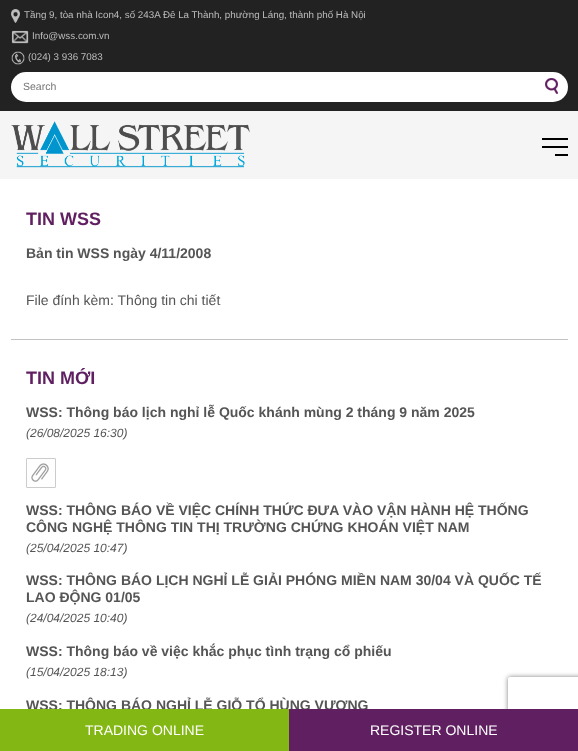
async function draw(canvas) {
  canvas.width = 578;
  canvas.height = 751;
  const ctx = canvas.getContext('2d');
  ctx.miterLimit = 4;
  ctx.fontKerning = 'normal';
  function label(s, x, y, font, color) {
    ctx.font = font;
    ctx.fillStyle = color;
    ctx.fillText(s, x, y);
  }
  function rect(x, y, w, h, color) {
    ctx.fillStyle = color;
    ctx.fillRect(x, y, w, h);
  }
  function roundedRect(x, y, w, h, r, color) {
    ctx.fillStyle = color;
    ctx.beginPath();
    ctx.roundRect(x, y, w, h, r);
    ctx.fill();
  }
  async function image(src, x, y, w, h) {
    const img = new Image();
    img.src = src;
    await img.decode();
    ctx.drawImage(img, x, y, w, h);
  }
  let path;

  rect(0, 0, 578, 751, '#fff');
  rect(0, 0, 578, 111, '#222');
  await image('assets/img1.png', 11, 9, 9, 14);
  label('Tầng 9, tòa nhà Icon4, số 243A Đê La Thành, phường Láng, thành phố Hà Nội', 24, 18, '9.8px Liberation Sans', '#bdbdbd');
  await image('assets/img2.png', 11, 30, 18, 14);
  label('Info@wss.com.vn', 32, 39, '9.8px Liberation Sans', '#bdbdbd');
  await image('assets/img3.png', 11, 51, 14, 14);
  label('(024) 3 936 7083', 28, 60, '9.8px Liberation Sans', '#bdbdbd');
  roundedRect(11, 72, 557, 30, 15, '#fff');
  label('Search', 23, 90, '10.5px Liberation Sans', '#757575');
  await image('assets/img4.png', 545, 78, 13, 16);
  rect(0, 111, 578, 68, '#f5f5f5');
  await image('assets/img5.png', 11, 121, 239, 47);
  rect(542, 138, 26, 2, '#000');
  rect(542, 146, 26, 2, '#000');
  rect(555, 154, 13, 2, '#000');
  label('TIN WSS', 26, 225, 'bold 18px Liberation Sans', '#5f1f60');
  label('Bản tin WSS ngày 4/11/2008', 26, 258, 'bold 14px Liberation Sans', '#555');
  label('File đính kèm: Thông tin chi tiết', 26, 305, '14px Liberation Sans', '#555');
  rect(11, 339, 557, 1, '#c2c2c2');
  label('TIN MỚI', 26, 384, 'bold 18px Liberation Sans', '#5f1f60');
  label('WSS: Thông báo lịch nghỉ lễ Quốc khánh mùng 2 tháng 9 năm 2025', 26, 417, 'bold 14px Liberation Sans', '#555');
  label('(26/08/2025 16:30)', 26, 437, 'italic 12px Liberation Sans', '#555');
  await image('assets/img6.png', 26, 458, 30, 30);
  label('WSS: THÔNG BÁO VỀ VIỆC CHÍNH THỨC ĐƯA VÀO VẬN HÀNH HỆ THỐNG', 26, 515, 'bold 14px Liberation Sans', '#555');
  label('CÔNG NGHỆ THÔNG TIN THỊ TRƯỜNG CHỨNG KHOÁN VIỆT NAM', 26, 532, 'bold 14px Liberation Sans', '#555');
  label('(25/04/2025 10:47)', 26, 552, 'italic 12px Liberation Sans', '#555');
  label('WSS: THÔNG BÁO LỊCH NGHỈ LỄ GIẢI PHÓNG MIỀN NAM 30/04 VÀ QUỐC TẾ', 26, 585, 'bold 14px Liberation Sans', '#555');
  label('LAO ĐỘNG 01/05', 26, 602, 'bold 14px Liberation Sans', '#555');
  label('(24/04/2025 10:40)', 26, 622, 'italic 12px Liberation Sans', '#555');
  label('WSS: Thông báo về việc khắc phục tình trạng cổ phiếu', 26, 656, 'bold 14px Liberation Sans', '#555');
  label('(15/04/2025 18:13)', 26, 676, 'italic 12px Liberation Sans', '#555');
  label('WSS: THÔNG BÁO NGHỈ LỄ GIỖ TỔ HÙNG VƯƠNG', 26, 710, 'bold 14px Liberation Sans', '#555');
  rect(0, 709, 289, 42, '#83b713');
  label('TRADING ONLINE', 85, 735, '14px Liberation Sans', '#fff');
  ctx.save();
  path = new Path2D('M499 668H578V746H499ZM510 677H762C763 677 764 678 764 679V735C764 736 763 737 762 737H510C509 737 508 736 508 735V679C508 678 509 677 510 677Z');
  ctx.clip(path, 'evenodd');
  ctx.fillStyle = '#808080';
  ctx.filter = 'blur(2.5px)';
  ctx.beginPath();
  ctx.roundRect(508, 677, 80, 60, 2);
  ctx.fill();
  ctx.filter = 'none';
  ctx.restore();
  rect(289, 709, 289, 42, '#5f1f60');
  label('REGISTER ONLINE', 370, 735, '14px Liberation Sans', '#fff');
}

draw(document.querySelector('canvas'));
